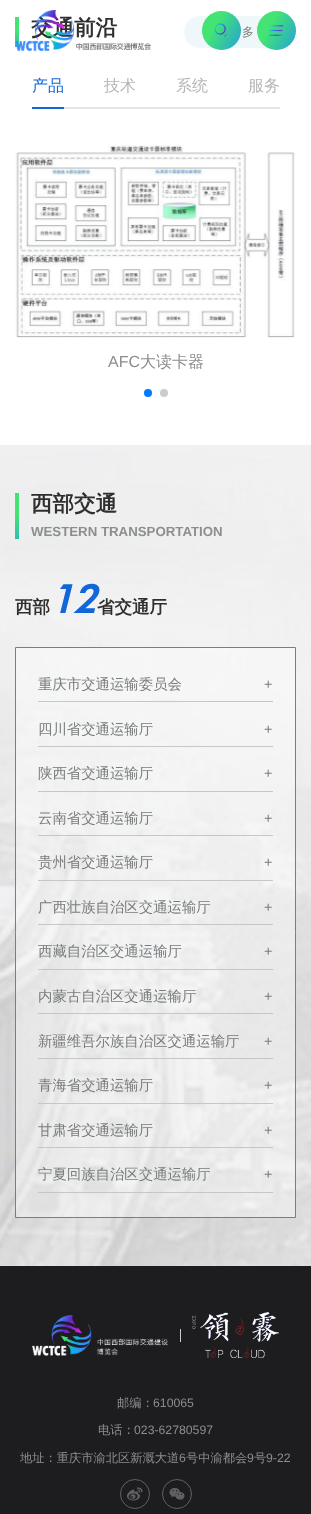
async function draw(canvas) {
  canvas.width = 311;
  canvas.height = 1514;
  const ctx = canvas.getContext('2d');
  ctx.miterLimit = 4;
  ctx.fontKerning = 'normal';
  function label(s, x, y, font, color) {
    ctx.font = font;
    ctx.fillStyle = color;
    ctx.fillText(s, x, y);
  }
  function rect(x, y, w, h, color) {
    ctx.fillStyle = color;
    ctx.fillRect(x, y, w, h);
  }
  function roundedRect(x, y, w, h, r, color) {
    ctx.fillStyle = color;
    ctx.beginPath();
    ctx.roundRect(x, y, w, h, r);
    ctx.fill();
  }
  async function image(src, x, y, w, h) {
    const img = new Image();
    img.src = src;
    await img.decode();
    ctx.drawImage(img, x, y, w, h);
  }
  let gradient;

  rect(0, 0, 311, 1514, '#fff');
  gradient = ctx.createLinearGradient(43, 31, -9, 123);
  gradient.addColorStop(0.12, '#43e473');
  gradient.addColorStop(0.38, '#1e96ec');
  gradient.addColorStop(0.62, '#6030cb');
  gradient.addColorStop(0.88, '#43e473');
  ctx.fillStyle = gradient;
  ctx.fillRect(15, 17, 4, 30);
  label('交通前沿', 31, 35, 'bold 21.5px WenQuanYi Zen Hei', '#2f2f2f');
  await image('assets/img1.png', 15, 10, 136, 42);
  roundedRect(184, 16, 112, 32, 16, '#f0f7fa');
  gradient = ctx.createLinearGradient(213, -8, 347, 69);
  gradient.addColorStop(0.12, '#43e473');
  gradient.addColorStop(0.38, '#1e96ec');
  gradient.addColorStop(0.62, '#6030cb');
  gradient.addColorStop(0.88, '#43e473');
  ctx.fillStyle = gradient;
  ctx.beginPath();
  ctx.arc(221.5, 30.5, 19.5, 0, 2 * Math.PI);
  ctx.fill();
  await image('assets/img2.png', 214, 23, 14, 15);
  gradient = ctx.createLinearGradient(268, -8, 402, 69);
  gradient.addColorStop(0.12, '#43e473');
  gradient.addColorStop(0.38, '#1e96ec');
  gradient.addColorStop(0.62, '#6030cb');
  gradient.addColorStop(0.88, '#43e473');
  ctx.fillStyle = gradient;
  ctx.beginPath();
  ctx.arc(276.5, 30.5, 19.5, 0, 2 * Math.PI);
  ctx.fill();
  await image('assets/img3.png', 269, 25, 14, 11);
  label('多', 242, 36, '500 12px WenQuanYi Zen Hei', '#787c7d');
  rect(64, 107, 216, 2, '#e5e5e5');
  label('产品', 32, 91, '500 16px WenQuanYi Zen Hei', '#1167da');
  label('技术', 104, 91, '500 16px WenQuanYi Zen Hei', '#b6b6b6');
  label('系统', 176, 91, '500 16px WenQuanYi Zen Hei', '#b6b6b6');
  label('服务', 248, 91, '500 16px WenQuanYi Zen Hei', '#b6b6b6');
  rect(32, 107, 32, 2, '#1167da');
  await image('assets/img4.png', 15, 145, 281, 193);
  label('AFC', 108, 367, '16px Liberation Sans', '#8d8d8d');
  ctx.save();
  ctx.beginPath();
  ctx.rect(15, 354, 281, 16);
  ctx.clip();
  label('大读卡器', 140, 367, '500 16px WenQuanYi Zen Hei', '#8d8d8d');
  ctx.restore();
  ctx.fillStyle = '#007aff';
  ctx.beginPath();
  ctx.arc(148, 393, 4, 0, 2 * Math.PI);
  ctx.fill();
  ctx.fillStyle = '#ccc';
  ctx.beginPath();
  ctx.arc(164, 393, 4, 0, 2 * Math.PI);
  ctx.fill();
  await image('assets/img5.png', 0, 445, 311, 821);
  gradient = ctx.createLinearGradient(57, 515, -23, 655);
  gradient.addColorStop(0.12, '#43e473');
  gradient.addColorStop(0.38, '#1e96ec');
  gradient.addColorStop(0.62, '#6030cb');
  gradient.addColorStop(0.88, '#43e473');
  ctx.fillStyle = gradient;
  ctx.fillRect(15, 493, 4, 46);
  label('西部交通', 31, 511, 'bold 21.5px WenQuanYi Zen Hei', '#2f2f2f');
  label('WESTERN TRANSPORTATION', 31, 536, 'bold 13.25px Liberation Sans', '#8d8d8d');
  label('西部', 15, 613, 'bold 17.5px WenQuanYi Zen Hei', '#2f2f2f');
  label('12', 50, 613, 'italic bold 39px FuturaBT', '#1167da');
  label('省交通厅', 97, 613, 'bold 17.5px WenQuanYi Zen Hei', '#2f2f2f');
  ctx.fillStyle = '#ffffff66';
  ctx.beginPath();
  ctx.rect(15.5, 647.5, 280, 570);
  ctx.fill();
  ctx.strokeStyle = '#4387e2';
  ctx.stroke();
  rect(38, 701, 235, 1, '#c6c6c6');
  ctx.save();
  ctx.beginPath();
  ctx.rect(38, 677, 206, 14);
  ctx.clip();
  label('重庆市交通运输委员会', 38, 689, '500 14.4px WenQuanYi Zen Hei', '#787c7d');
  ctx.restore();
  label('+', 264, 689, '14.4px Liberation Sans', '#787c7d');
  rect(38, 746, 235, 1, '#c6c6c6');
  ctx.save();
  ctx.beginPath();
  ctx.rect(38, 722, 206, 14);
  ctx.clip();
  label('四川省交通运输厅', 38, 734, '500 14.4px WenQuanYi Zen Hei', '#787c7d');
  ctx.restore();
  label('+', 264, 734, '14.4px Liberation Sans', '#787c7d');
  rect(38, 791, 235, 1, '#c6c6c6');
  label('陕西省交通运输厅', 38, 778, '500 14.4px WenQuanYi Zen Hei', '#787c7d');
  label('+', 264, 778, '14.4px Liberation Sans', '#787c7d');
  rect(38, 835, 235, 1, '#c6c6c6');
  ctx.save();
  ctx.beginPath();
  ctx.rect(38, 811, 206, 14);
  ctx.clip();
  label('云南省交通运输厅', 38, 823, '500 14.4px WenQuanYi Zen Hei', '#787c7d');
  ctx.restore();
  label('+', 264, 823, '14.4px Liberation Sans', '#787c7d');
  rect(38, 880, 235, 1, '#c6c6c6');
  label('贵州省交通运输厅', 38, 867, '500 14.4px WenQuanYi Zen Hei', '#787c7d');
  label('+', 264, 867, '14.4px Liberation Sans', '#787c7d');
  rect(38, 924, 235, 1, '#c6c6c6');
  ctx.save();
  ctx.beginPath();
  ctx.rect(38, 900, 206, 14);
  ctx.clip();
  label('广西壮族自治区交通运输厅', 38, 912, '500 14.4px WenQuanYi Zen Hei', '#787c7d');
  ctx.restore();
  label('+', 264, 912, '14.4px Liberation Sans', '#787c7d');
  rect(38, 969, 235, 1, '#c6c6c6');
  label('西藏自治区交通运输厅', 38, 956, '500 14.4px WenQuanYi Zen Hei', '#787c7d');
  label('+', 264, 956, '14.4px Liberation Sans', '#787c7d');
  rect(38, 1013, 235, 1, '#c6c6c6');
  ctx.save();
  ctx.beginPath();
  ctx.rect(38, 989, 206, 14);
  ctx.clip();
  label('内蒙古自治区交通运输厅', 38, 1001, '500 14.4px WenQuanYi Zen Hei', '#787c7d');
  ctx.restore();
  label('+', 264, 1001, '14.4px Liberation Sans', '#787c7d');
  rect(38, 1058, 235, 1, '#c6c6c6');
  label('新疆维吾尔族自治区交通运输厅', 38, 1046, '500 14.4px WenQuanYi Zen Hei', '#787c7d');
  label('+', 264, 1046, '14.4px Liberation Sans', '#787c7d');
  rect(38, 1103, 235, 1, '#c6c6c6');
  label('青海省交通运输厅', 38, 1090, '500 14.4px WenQuanYi Zen Hei', '#787c7d');
  label('+', 264, 1090, '14.4px Liberation Sans', '#787c7d');
  rect(38, 1147, 235, 1, '#c6c6c6');
  ctx.save();
  ctx.beginPath();
  ctx.rect(38, 1123, 206, 14);
  ctx.clip();
  label('甘肃省交通运输厅', 38, 1135, '500 14.4px WenQuanYi Zen Hei', '#787c7d');
  ctx.restore();
  label('+', 264, 1135, '14.4px Liberation Sans', '#787c7d');
  rect(38, 1192, 235, 1, '#c6c6c6');
  label('宁夏回族自治区交通运输厅', 38, 1179, '500 14.4px WenQuanYi Zen Hei', '#787c7d');
  label('+', 264, 1179, '14.4px Liberation Sans', '#787c7d');
  rect(0, 1266, 311, 248, '#1d1d1f');
  await image('assets/img6.png', 32, 1315, 136, 41);
  rect(180, 1329, 1, 13, '#cacaca');
  await image('assets/img7.png', 192, 1312, 87, 46);
  label('邮编：', 117, 1407, '500 12.25px WenQuanYi Zen Hei', '#8d8d8d');
  label('610065', 153, 1407, '12.25px Liberation Sans', '#8d8d8d');
  label('电话：', 98, 1434, '500 12.25px WenQuanYi Zen Hei', '#8d8d8d');
  label('023-62780597', 134, 1434, '12.25px Liberation Sans', '#8d8d8d');
  label('地址：重庆市渝北区新溉大道', 20, 1462, '500 12.25px WenQuanYi Zen Hei', '#8d8d8d');
  label('6', 179, 1462, '12.25px Liberation Sans', '#8d8d8d');
  label('号中渝都会', 186, 1462, '500 12.25px WenQuanYi Zen Hei', '#8d8d8d');
  label('9', 247, 1462, '12.25px Liberation Sans', '#8d8d8d');
  label('号', 254, 1462, '500 12.25px WenQuanYi Zen Hei', '#8d8d8d');
  label('9-22', 266, 1462, '12.25px Liberation Sans', '#8d8d8d');
  ctx.beginPath();
  ctx.arc(135, 1494, 14.5, 0, 2 * Math.PI);
  ctx.strokeStyle = '#616162';
  ctx.stroke();
  await image('assets/img8.png', 127, 1487, 16, 14);
  ctx.beginPath();
  ctx.arc(177, 1494, 14.5, 0, 2 * Math.PI);
  ctx.stroke();
  await image('assets/img9.png', 169, 1488, 16, 12);
}

draw(document.querySelector('canvas'));
